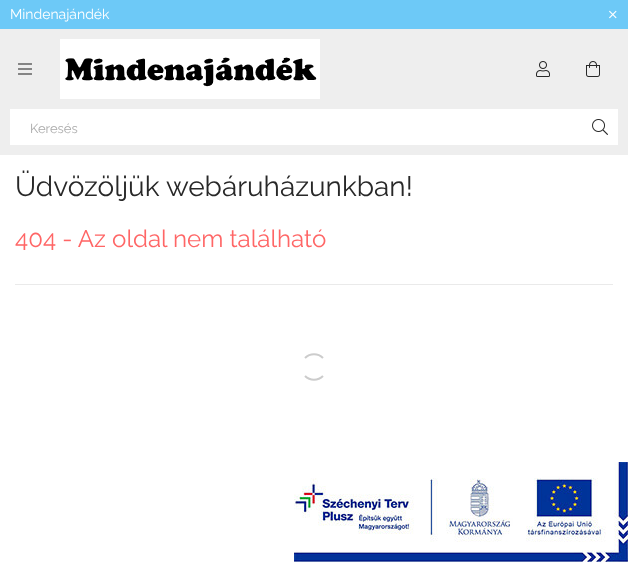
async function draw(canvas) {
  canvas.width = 628;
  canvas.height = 562;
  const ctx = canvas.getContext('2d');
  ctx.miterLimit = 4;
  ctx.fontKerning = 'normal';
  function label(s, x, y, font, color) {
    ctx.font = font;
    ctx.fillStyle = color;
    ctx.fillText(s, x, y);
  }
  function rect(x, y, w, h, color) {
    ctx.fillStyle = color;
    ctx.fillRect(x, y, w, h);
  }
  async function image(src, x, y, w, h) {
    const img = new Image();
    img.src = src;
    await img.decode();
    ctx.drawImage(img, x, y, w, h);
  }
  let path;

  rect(0, 0, 628, 562, '#fff');
  rect(0, 0, 628, 29, '#6dc9f7');
  label('Mindenajándék', 10, 19, '14px Raleway', '#fff');
  await image('assets/img1.png', 609, 10, 8, 9);
  rect(0, 29, 628, 126, '#eee');
  await image('assets/img2.png', 18, 63, 14, 12);
  await image('assets/img3.png', 60, 39, 260, 60);
  await image('assets/img4.png', 536, 61, 14, 16);
  await image('assets/img5.png', 586, 61, 14, 16);
  rect(10, 109, 608, 36, '#fff');
  label('Keresés', 30, 133, '13px Raleway', '#aaa');
  await image('assets/img6.png', 592, 119, 16, 16);
  label('Üdvözöljük webáruházunkban!', 15, 196, '28px Raleway', '#282828');
  rect(15, 284, 598, 1, '#eaeaea');
  label('404 - Az oldal nem található', 15, 247, '24.1px Raleway', '#f66');
  path = new Path2D('M305 358C310 353 318 353 323 358M323 376C318 381 310 381 305 376');
  ctx.strokeStyle = '#ccc';
  ctx.lineWidth = 2;
  ctx.stroke(path);
  await image('assets/img7.png', 294, 462, 334, 100);
}

draw(document.querySelector('canvas'));
